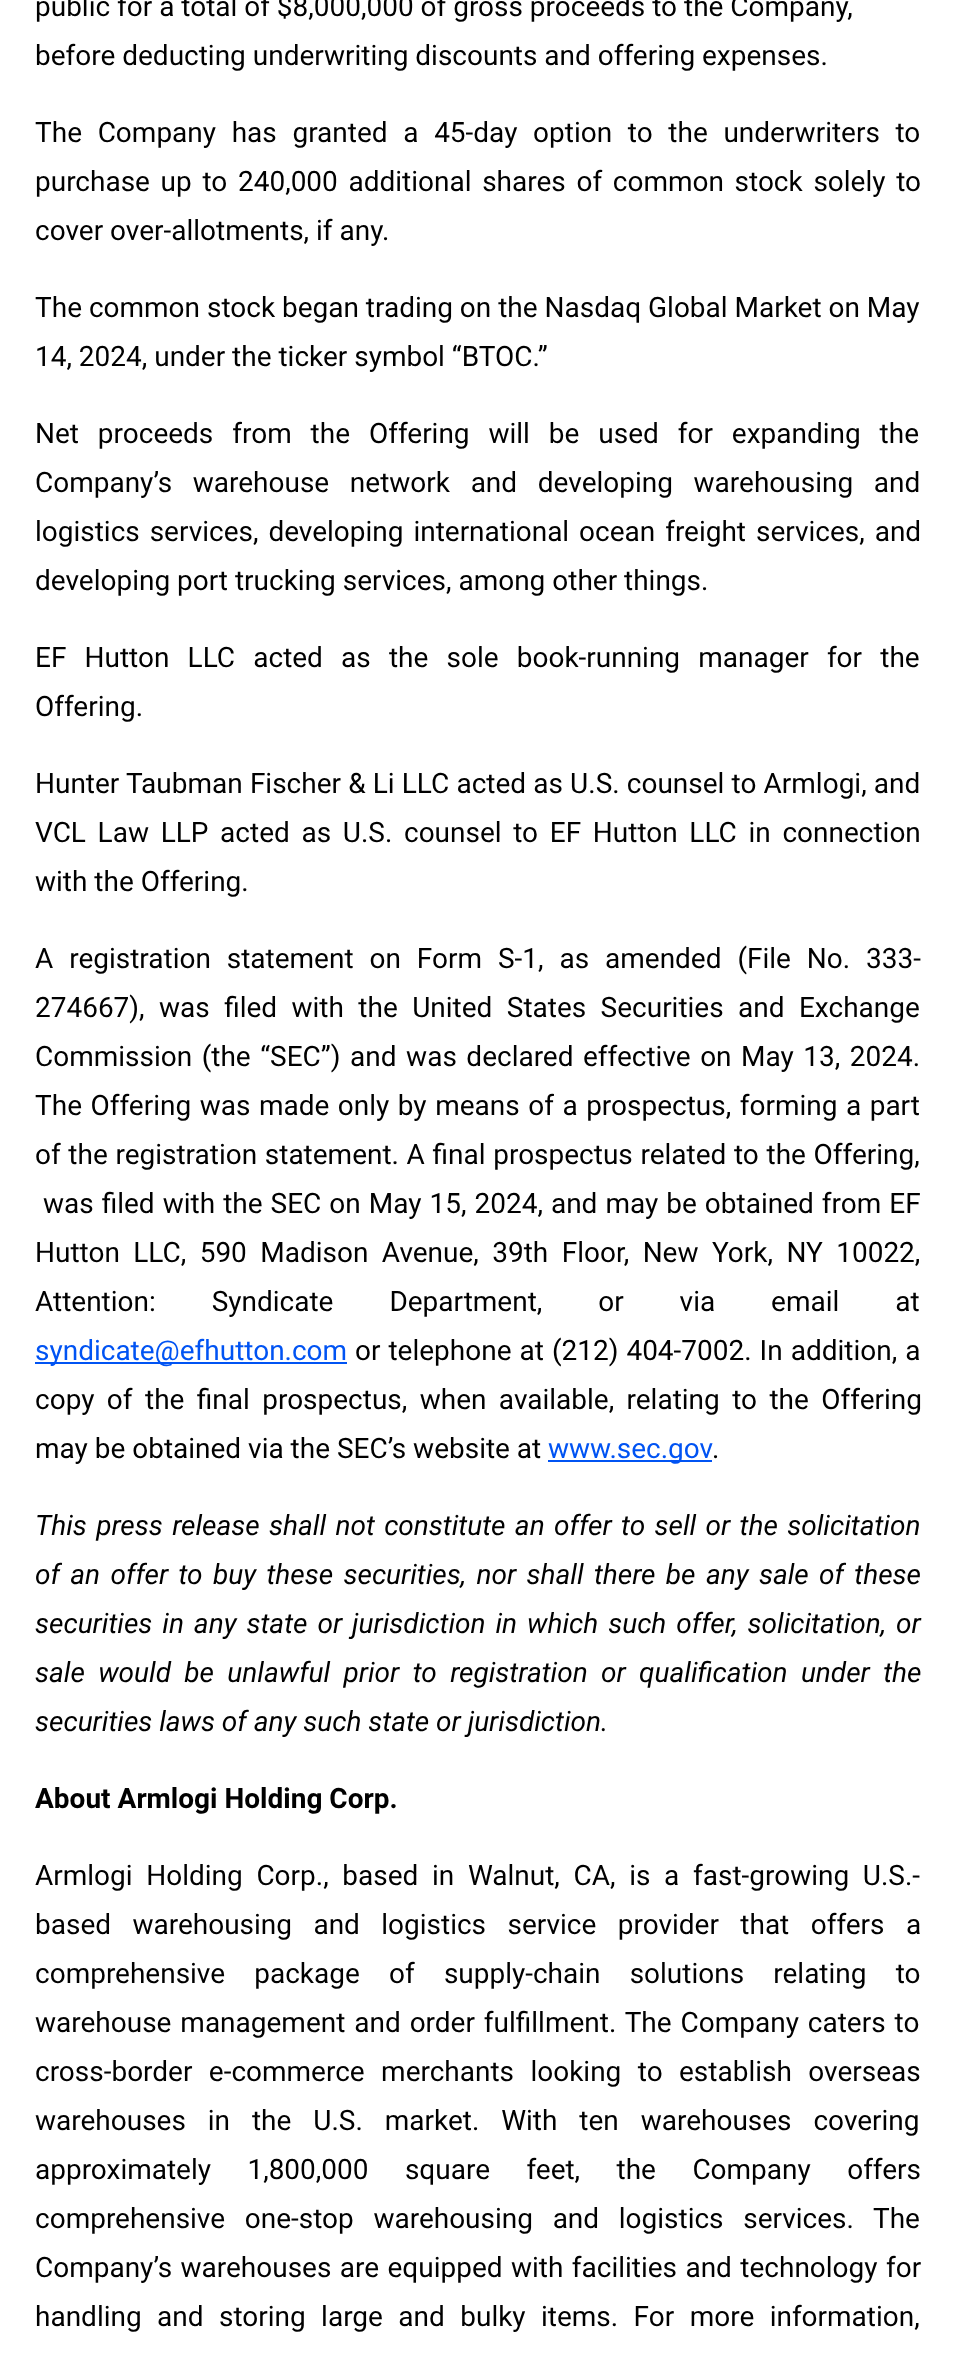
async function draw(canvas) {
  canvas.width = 954;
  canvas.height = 2369;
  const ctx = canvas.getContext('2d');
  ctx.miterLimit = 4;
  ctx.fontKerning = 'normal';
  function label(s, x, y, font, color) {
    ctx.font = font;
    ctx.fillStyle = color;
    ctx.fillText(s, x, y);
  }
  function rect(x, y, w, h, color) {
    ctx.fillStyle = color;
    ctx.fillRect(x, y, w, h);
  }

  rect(0, 0, 954, 2369, '#fff');
  label('public for a total of $8,000,000 of gross proceeds to the Company,', 35, 16, '28px Roboto', '#000');
  label('before deducting underwriting discounts and offering expenses.', 35, 65, '28px Roboto', '#000');
  ctx.wordSpacing = '8.75px';
  label('The Company has granted a 45-day option to the underwriters to', 35, 142, '28px Roboto', '#000');
  ctx.wordSpacing = '3.75px';
  label('purchase up to 240,000 additional shares of common stock solely to', 35, 191, '28px Roboto', '#000');
  ctx.wordSpacing = '0px';
  label('cover over-allotments, if any.', 35, 240, '28px Roboto', '#000');
  label('The common stock began trading on the Nasdaq Global Market on May', 35, 317, '28px Roboto', '#000');
  label('14, 2024, under the ticker symbol “BTOC.”', 35, 366, '28px Roboto', '#000');
  ctx.wordSpacing = '12px';
  label('Net proceeds from the Offering will be used for expanding the', 35, 443, '28px Roboto', '#000');
  ctx.wordSpacing = '13.75px';
  label('Company’s warehouse network and developing warehousing and', 35, 492, '28px Roboto', '#000');
  ctx.wordSpacing = '3px';
  label('logistics services, developing international ocean freight services, and', 35, 541, '28px Roboto', '#000');
  ctx.wordSpacing = '0px';
  label('developing port trucking services, among other things.', 35, 590, '28px Roboto', '#000');
  ctx.wordSpacing = '11.25px';
  label('EF Hutton LLC acted as the sole book-running manager for the', 35, 667, '28px Roboto', '#000');
  ctx.wordSpacing = '0px';
  label('Offering.', 35, 716, '28px Roboto', '#000');
  ctx.wordSpacing = '0.25px';
  label('Hunter Taubman Fischer & Li LLC acted as U.S. counsel to Armlogi, and', 35, 793, '28px Roboto', '#000');
  ctx.wordSpacing = '4.75px';
  label('VCL Law LLP acted as U.S. counsel to EF Hutton LLC in connection', 35, 842, '28px Roboto', '#000');
  ctx.wordSpacing = '0px';
  label('with the Offering.', 35, 891, '28px Roboto', '#000');
  ctx.wordSpacing = '9px';
  label('A registration statement on Form S-1, as amended (File No. 333-', 35, 968, '28px Roboto', '#000');
  ctx.wordSpacing = '7.5px';
  label('274667), was filed with the United States Securities and Exchange', 35, 1017, '28px Roboto', '#000');
  ctx.wordSpacing = '2.6px';
  label('Commission (the “SEC”) and was declared effective on May 13, 2024.', 35, 1066, '28px Roboto', '#000');
  ctx.wordSpacing = '1.6px';
  label('The Offering was made only by means of a prospectus, forming a part', 35, 1115, '28px Roboto', '#000');
  ctx.wordSpacing = '0.75px';
  label('of the registration statement. A final prospectus related to the Offering,', 35, 1164, '28px Roboto', '#000');
  ctx.wordSpacing = '1.1px';
  label('was filed with the SEC on May 15, 2024, and may be obtained from EF', 43, 1213, '28px Roboto', '#000');
  ctx.wordSpacing = '6.5px';
  label('Hutton LLC, 590 Madison Avenue, 39th Floor, New York, NY 10022,', 35, 1262, '28px Roboto', '#000');
  ctx.wordSpacing = '49px';
  label('Attention: Syndicate Department, or via email at', 35, 1311, '28px Roboto', '#000');
  rect(35, 1362, 312, 2, '#0053f3');
  ctx.wordSpacing = '0px';
  label('syndicate@efhutton.com', 35, 1360, '28px Roboto', '#0053f3');
  ctx.wordSpacing = '1.1px';
  label('or telephone at (212) 404-7002. In addition, a', 355, 1360, '28px Roboto', '#000');
  ctx.wordSpacing = '5.5px';
  label('copy of the final prospectus, when available, relating to the Offering', 35, 1409, '28px Roboto', '#000');
  ctx.wordSpacing = '0px';
  label('may be obtained via the SEC’s website at', 35, 1458, '28px Roboto', '#000');
  rect(548, 1460, 164, 2, '#0053f3');
  label('www.sec.gov', 548, 1458, '28px Roboto', '#0053f3');
  label('.', 712, 1458, '28px Roboto', '#000');
  ctx.wordSpacing = '2.5px';
  label('This press release shall not constitute an offer to sell or the solicitation', 35, 1535, 'italic 28px Roboto', '#000');
  ctx.wordSpacing = '3.5px';
  label('of an offer to buy these securities, nor shall there be any sale of these', 35, 1584, 'italic 28px Roboto', '#000');
  ctx.wordSpacing = '3.1px';
  label('securities in any state or jurisdiction in which such offer, solicitation, or', 35, 1633, 'italic 28px Roboto', '#000');
  ctx.wordSpacing = '6.5px';
  label('sale would be unlawful prior to registration or qualification under the', 35, 1682, 'italic 28px Roboto', '#000');
  ctx.wordSpacing = '0px';
  label('securities laws of any such state or jurisdiction.', 35, 1731, 'italic 28px Roboto', '#000');
  label('About Armlogi Holding Corp.', 35, 1808, 'bold 28px Roboto', '#000');
  ctx.wordSpacing = '6.75px';
  label('Armlogi Holding Corp., based in Walnut, CA, is a fast-growing U.S.-', 35, 1885, '28px Roboto', '#000');
  ctx.wordSpacing = '14.5px';
  label('based warehousing and logistics service provider that offers a', 35, 1934, '28px Roboto', '#000');
  ctx.wordSpacing = '22.25px';
  label('comprehensive package of supply-chain solutions relating to', 35, 1983, '28px Roboto', '#000');
  ctx.wordSpacing = '2px';
  label('warehouse management and order fulfillment. The Company caters to', 35, 2032, '28px Roboto', '#000');
  ctx.wordSpacing = '9.5px';
  label('cross-border e-commerce merchants looking to establish overseas', 35, 2081, '28px Roboto', '#000');
  ctx.wordSpacing = '15px';
  label('warehouses in the U.S. market. With ten warehouses covering', 35, 2130, '28px Roboto', '#000');
  ctx.wordSpacing = '29.5px';
  label('approximately 1,800,000 square feet, the Company offers', 35, 2179, '28px Roboto', '#000');
  ctx.wordSpacing = '12.75px';
  label('comprehensive one-stop warehousing and logistics services. The', 35, 2228, '28px Roboto', '#000');
  ctx.wordSpacing = '1.5px';
  label('Company’s warehouses are equipped with facilities and technology for', 35, 2277, '28px Roboto', '#000');
  ctx.wordSpacing = '8.5px';
  label('handling and storing large and bulky items. For more information,', 35, 2326, '28px Roboto', '#000');
}

draw(document.querySelector('canvas'));
